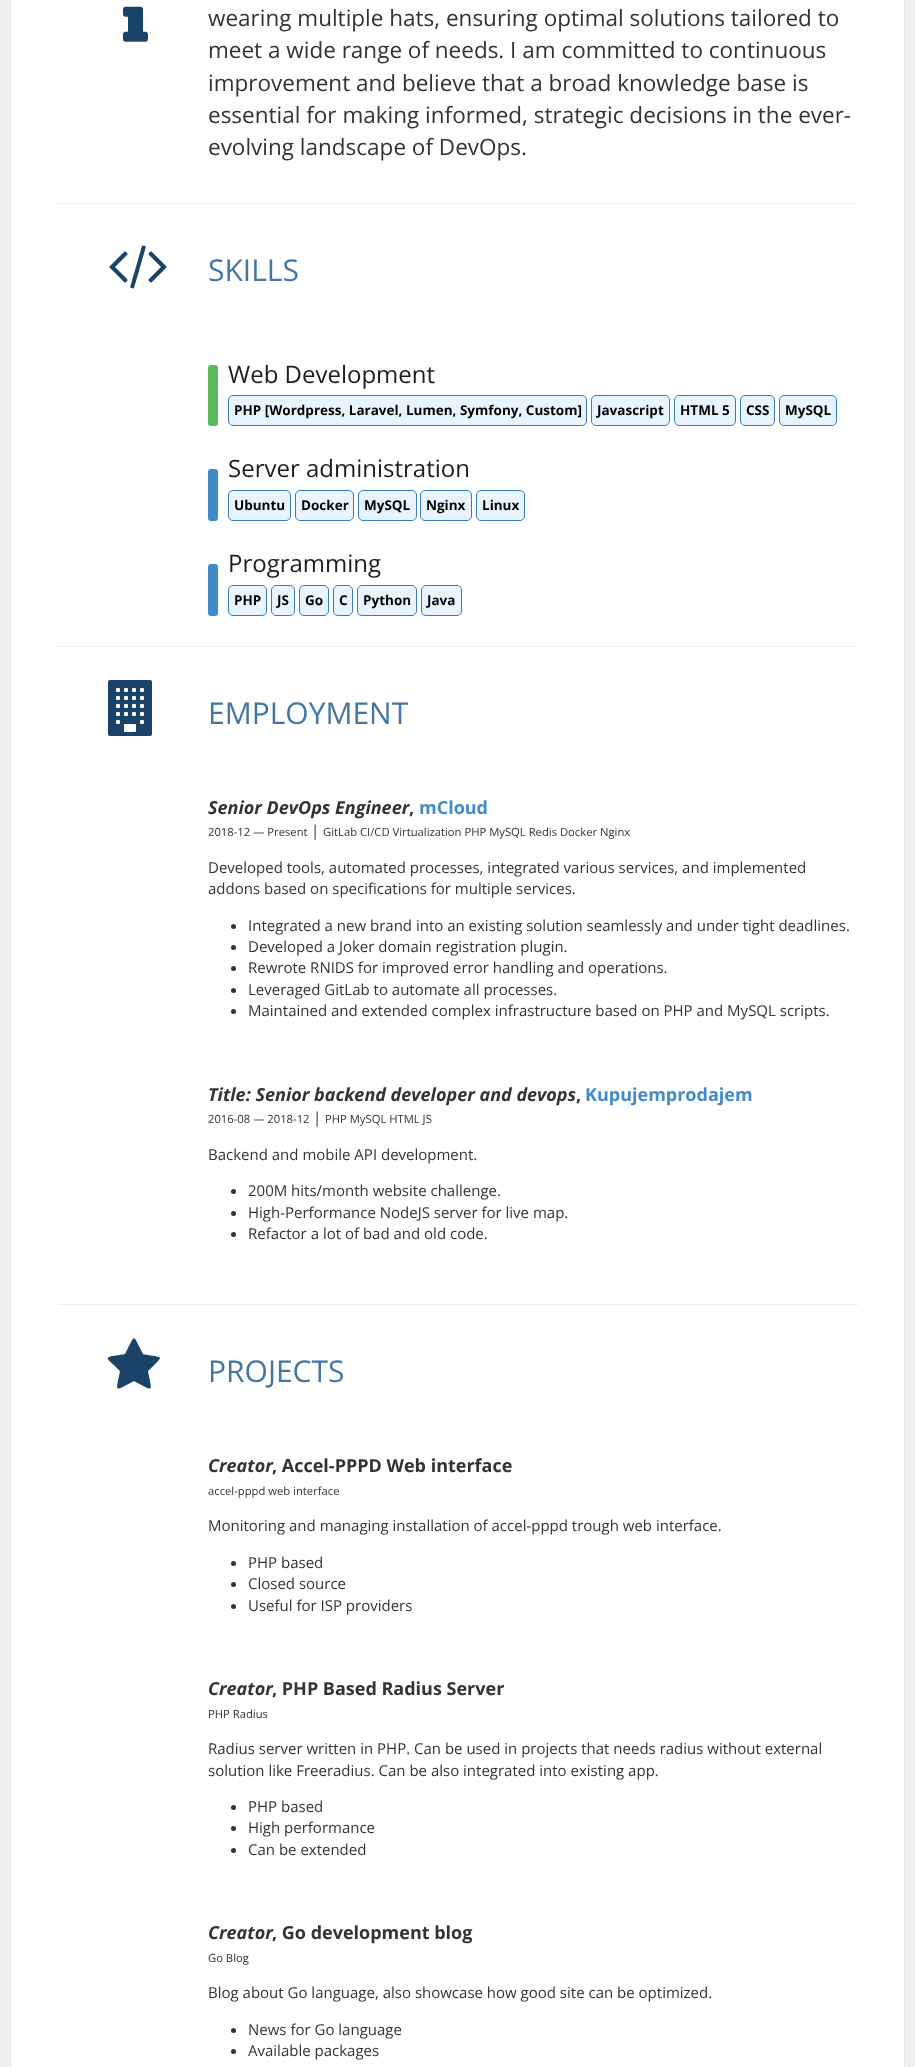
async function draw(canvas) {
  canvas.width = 915;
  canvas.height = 2067;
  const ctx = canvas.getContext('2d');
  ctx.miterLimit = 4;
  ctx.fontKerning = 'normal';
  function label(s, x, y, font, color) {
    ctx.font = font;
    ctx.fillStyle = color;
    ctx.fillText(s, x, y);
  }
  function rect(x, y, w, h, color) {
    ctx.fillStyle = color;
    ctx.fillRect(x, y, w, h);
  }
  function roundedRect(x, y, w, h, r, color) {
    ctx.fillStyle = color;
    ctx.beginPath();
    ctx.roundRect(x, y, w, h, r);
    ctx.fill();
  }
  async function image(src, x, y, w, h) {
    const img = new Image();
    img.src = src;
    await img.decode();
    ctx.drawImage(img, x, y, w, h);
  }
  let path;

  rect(0, 0, 915, 2067, '#f0f0f0');
  ctx.fillStyle = '#fff';
  ctx.beginPath();
  ctx.rect(10.5, -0.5, 894, 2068);
  ctx.fill();
  ctx.strokeStyle = '#e6e6e6';
  ctx.stroke();
  await image('assets/img1.png', 123, 6, 25, 36);
  label('wearing multiple hats, ensuring optimal solutions tailored to', 208, 26, '22.5px Open Sans', '#333');
  label('meet a wide range of needs. I am committed to continuous', 208, 58, '22.5px Open Sans', '#333');
  label('improvement and believe that a broad knowledge base is', 208, 91, '22.5px Open Sans', '#333');
  label('essential for making informed, strategic decisions in the ever-', 208, 123, '22.5px Open Sans', '#333');
  label('evolving landscape of DevOps.', 208, 155, '22.5px Open Sans', '#333');
  rect(58, 203, 800, 1, '#eee');
  await image('assets/img2.png', 109, 245, 58, 44);
  label('SKILLS', 208, 281, '30px Open Sans', '#4376a2');
  roundedRect(208, 365, 10, 61, 3, '#5cb85c');
  label('Web Development', 228, 383, '24px Open Sans', '#1d1d1d');
  ctx.fillStyle = '#e8f4ff';
  ctx.beginPath();
  ctx.roundRect(228.5, 395.5, 358, 30, 4.5);
  ctx.fill();
  ctx.strokeStyle = '#357ebd';
  ctx.stroke();
  label('PHP [Wordpress, Laravel, Lumen, Symfony, Custom]', 234, 415, 'bold 13.5px Open Sans', '#000');
  ctx.fillStyle = '#e8f4ff';
  ctx.beginPath();
  ctx.roundRect(591.5, 395.5, 78, 30, 4.5);
  ctx.fill();
  ctx.stroke();
  label('Javascript', 597, 415, 'bold 13.5px Open Sans', '#000');
  ctx.fillStyle = '#e8f4ff';
  ctx.beginPath();
  ctx.roundRect(674.5, 395.5, 61, 30, 4.5);
  ctx.fill();
  ctx.stroke();
  label('HTML 5', 680, 415, 'bold 13.5px Open Sans', '#000');
  ctx.fillStyle = '#e8f4ff';
  ctx.beginPath();
  ctx.roundRect(740.5, 395.5, 34, 30, 4.5);
  ctx.fill();
  ctx.stroke();
  label('CSS', 746, 415, 'bold 13.5px Open Sans', '#000');
  ctx.fillStyle = '#e8f4ff';
  ctx.beginPath();
  ctx.roundRect(779.5, 395.5, 57, 30, 4.5);
  ctx.fill();
  ctx.stroke();
  label('MySQL', 785, 415, 'bold 13.5px Open Sans', '#000');
  roundedRect(208, 469, 10, 52, 3, '#428bca');
  label('Server administration', 228, 477, '24px Open Sans', '#1d1d1d');
  ctx.fillStyle = '#e8f4ff';
  ctx.beginPath();
  ctx.roundRect(228.5, 490.5, 62, 30, 4.5);
  ctx.fill();
  ctx.stroke();
  label('Ubuntu', 234, 510, 'bold 13.5px Open Sans', '#000');
  ctx.fillStyle = '#e8f4ff';
  ctx.beginPath();
  ctx.roundRect(295.5, 490.5, 58, 30, 4.5);
  ctx.fill();
  ctx.stroke();
  label('Docker', 301, 510, 'bold 13.5px Open Sans', '#000');
  ctx.fillStyle = '#e8f4ff';
  ctx.beginPath();
  ctx.roundRect(358.5, 490.5, 58, 30, 4.5);
  ctx.fill();
  ctx.stroke();
  label('MySQL', 364, 510, 'bold 13.5px Open Sans', '#000');
  ctx.fillStyle = '#e8f4ff';
  ctx.beginPath();
  ctx.roundRect(420.5, 490.5, 51, 30, 4.5);
  ctx.fill();
  ctx.stroke();
  label('Nginx', 426, 510, 'bold 13.5px Open Sans', '#000');
  ctx.fillStyle = '#e8f4ff';
  ctx.beginPath();
  ctx.roundRect(476.5, 490.5, 48, 30, 4.5);
  ctx.fill();
  ctx.stroke();
  label('Linux', 482, 510, 'bold 13.5px Open Sans', '#000');
  roundedRect(208, 564, 10, 52, 3, '#428bca');
  label('Programming', 228, 572, '24px Open Sans', '#1d1d1d');
  ctx.fillStyle = '#e8f4ff';
  ctx.beginPath();
  ctx.roundRect(228.5, 585.5, 38, 30, 4.5);
  ctx.fill();
  ctx.stroke();
  label('PHP', 234, 605, 'bold 13.5px Open Sans', '#000');
  ctx.fillStyle = '#e8f4ff';
  ctx.beginPath();
  ctx.roundRect(271.5, 585.5, 23, 30, 4.5);
  ctx.fill();
  ctx.stroke();
  label('JS', 277, 605, 'bold 13.5px Open Sans', '#000');
  ctx.fillStyle = '#e8f4ff';
  ctx.beginPath();
  ctx.roundRect(299.5, 585.5, 29, 30, 4.5);
  ctx.fill();
  ctx.stroke();
  label('Go', 305, 605, 'bold 13.5px Open Sans', '#000');
  ctx.fillStyle = '#e8f4ff';
  ctx.beginPath();
  ctx.roundRect(333.5, 585.5, 19, 30, 4.5);
  ctx.fill();
  ctx.stroke();
  label('C', 339, 605, 'bold 13.5px Open Sans', '#000');
  ctx.fillStyle = '#e8f4ff';
  ctx.beginPath();
  ctx.roundRect(357.5, 585.5, 59, 30, 4.5);
  ctx.fill();
  ctx.stroke();
  label('Python', 363, 605, 'bold 13.5px Open Sans', '#000');
  ctx.fillStyle = '#e8f4ff';
  ctx.beginPath();
  ctx.roundRect(421.5, 585.5, 40, 30, 4.5);
  ctx.fill();
  ctx.stroke();
  label('Java', 427, 605, 'bold 13.5px Open Sans', '#000');
  rect(58, 646, 800, 1, '#eee');
  await image('assets/img3.png', 108, 680, 44, 56);
  label('EMPLOYMENT', 208, 724, '30px Open Sans', '#4376a2');
  label('Senior DevOps Engineer', 208, 814, 'italic bold 18px Open Sans', '#333');
  label(',', 409, 814, 'bold 18px Open Sans', '#333');
  label('mCloud', 419, 814, 'bold 18px Open Sans', '#428bca');
  label('2018-12 — Present', 208, 836, '11.25px Open Sans', '#333');
  label('|', 311, 836, '15px Open Sans', '#333');
  label('GitLab CI/CD Virtualization PHP MySQL Redis Docker Nginx', 323, 836, '11.25px Open Sans', '#333');
  label('Developed tools, automated processes, integrated various services, and implemented', 208, 873, '15px Open Sans', '#333');
  label('addons based on specifications for multiple services.', 208, 894, '15px Open Sans', '#333');
  ctx.beginPath();
  ctx.arc(233.5, 926.5, 2.5, 0, 2 * Math.PI);
  ctx.fill();
  label('Integrated a new brand into an existing solution seamlessly and under tight deadlines.', 248, 931, '15px Open Sans', '#333');
  ctx.beginPath();
  ctx.arc(233.5, 947.5, 2.5, 0, 2 * Math.PI);
  ctx.fill();
  label('Developed a Joker domain registration plugin.', 248, 952, '15px Open Sans', '#333');
  ctx.beginPath();
  ctx.arc(233.5, 968.5, 2.5, 0, 2 * Math.PI);
  ctx.fill();
  label('Rewrote RNIDS for improved error handling and operations.', 248, 973, '15px Open Sans', '#333');
  ctx.beginPath();
  ctx.arc(233.5, 990.5, 2.5, 0, 2 * Math.PI);
  ctx.fill();
  label('Leveraged GitLab to automate all processes.', 248, 995, '15px Open Sans', '#333');
  ctx.beginPath();
  ctx.arc(233.5, 1011.5, 2.5, 0, 2 * Math.PI);
  ctx.fill();
  label('Maintained and extended complex infrastructure based on PHP and MySQL scripts.', 248, 1016, '15px Open Sans', '#333');
  label('Title: Senior backend developer and devops', 208, 1101, 'italic bold 18px Open Sans', '#333');
  label(',', 576, 1101, 'bold 18px Open Sans', '#333');
  label('Kupujemprodajem', 585, 1101, 'bold 18px Open Sans', '#428bca');
  label('2016-08 — 2018-12', 208, 1123, '11.25px Open Sans', '#333');
  label('|', 313, 1123, '15px Open Sans', '#333');
  label('PHP MySQL HTML JS', 325, 1123, '11.25px Open Sans', '#333');
  label('Backend and mobile API development.', 208, 1160, '15px Open Sans', '#333');
  ctx.beginPath();
  ctx.arc(233.5, 1191.5, 2.5, 0, 2 * Math.PI);
  ctx.fill();
  label('200M hits/month website challenge.', 248, 1196, '15px Open Sans', '#333');
  ctx.beginPath();
  ctx.arc(233.5, 1213.5, 2.5, 0, 2 * Math.PI);
  ctx.fill();
  label('High-Performance NodeJS server for live map.', 248, 1218, '15px Open Sans', '#333');
  ctx.beginPath();
  ctx.arc(233.5, 1234.5, 2.5, 0, 2 * Math.PI);
  ctx.fill();
  label('Refactor a lot of bad and old code.', 248, 1239, '15px Open Sans', '#333');
  rect(58, 1304, 800, 1, '#eee');
  ctx.fillStyle = '#1a4367';
  path = new Path2D('M160 1358C160 1360 150 1369 148 1371C152 1393 155 1392 134 1381C113 1392 116 1393 120 1371C104 1355 102 1358 125 1354C136 1333 132 1333 143 1354C145 1355 160 1356 160 1358Z');
  ctx.fill(path);
  label('PROJECTS', 208, 1382, '30px Open Sans', '#4376a2');
  label('Creator', 208, 1472, 'italic bold 18px Open Sans', '#333');
  label(', Accel-PPPD Web interface', 272, 1472, 'bold 18px Open Sans', '#333');
  label('accel-pppd web interface', 208, 1495, '11.25px Open Sans', '#333');
  label('Monitoring and managing installation of accel-pppd trough web interface.', 208, 1531, '15px Open Sans', '#333');
  ctx.beginPath();
  ctx.arc(233.5, 1563.5, 2.5, 0, 2 * Math.PI);
  ctx.fill();
  label('PHP based', 248, 1568, '15px Open Sans', '#333');
  ctx.beginPath();
  ctx.arc(233.5, 1584.5, 2.5, 0, 2 * Math.PI);
  ctx.fill();
  label('Closed source', 248, 1589, '15px Open Sans', '#333');
  ctx.beginPath();
  ctx.arc(233.5, 1606.5, 2.5, 0, 2 * Math.PI);
  ctx.fill();
  label('Useful for ISP providers', 248, 1611, '15px Open Sans', '#333');
  label('Creator', 208, 1695, 'italic bold 18px Open Sans', '#333');
  label(', PHP Based Radius Server', 272, 1695, 'bold 18px Open Sans', '#333');
  label('PHP Radius', 208, 1718, '11.25px Open Sans', '#333');
  label('Radius server written in PHP. Can be used in projects that needs radius without external', 208, 1754, '15px Open Sans', '#333');
  label('solution like Freeradius. Can be also integrated into existing app.', 208, 1776, '15px Open Sans', '#333');
  ctx.beginPath();
  ctx.arc(233.5, 1807.5, 2.5, 0, 2 * Math.PI);
  ctx.fill();
  label('PHP based', 248, 1812, '15px Open Sans', '#333');
  ctx.beginPath();
  ctx.arc(233.5, 1828.5, 2.5, 0, 2 * Math.PI);
  ctx.fill();
  label('High performance', 248, 1833, '15px Open Sans', '#333');
  ctx.beginPath();
  ctx.arc(233.5, 1850.5, 2.5, 0, 2 * Math.PI);
  ctx.fill();
  label('Can be extended', 248, 1855, '15px Open Sans', '#333');
  label('Creator', 208, 1939, 'italic bold 18px Open Sans', '#333');
  label(', Go development blog', 272, 1939, 'bold 18px Open Sans', '#333');
  label('Go Blog', 208, 1962, '11.25px Open Sans', '#333');
  label('Blog about Go language, also showcase how good site can be optimized.', 208, 1998, '15px Open Sans', '#333');
  ctx.beginPath();
  ctx.arc(233.5, 2030.5, 2.5, 0, 2 * Math.PI);
  ctx.fill();
  label('News for Go language', 248, 2035, '15px Open Sans', '#333');
  ctx.beginPath();
  ctx.arc(233.5, 2051.5, 2.5, 0, 2 * Math.PI);
  ctx.fill();
  label('Available packages', 248, 2056, '15px Open Sans', '#333');
}

draw(document.querySelector('canvas'));
